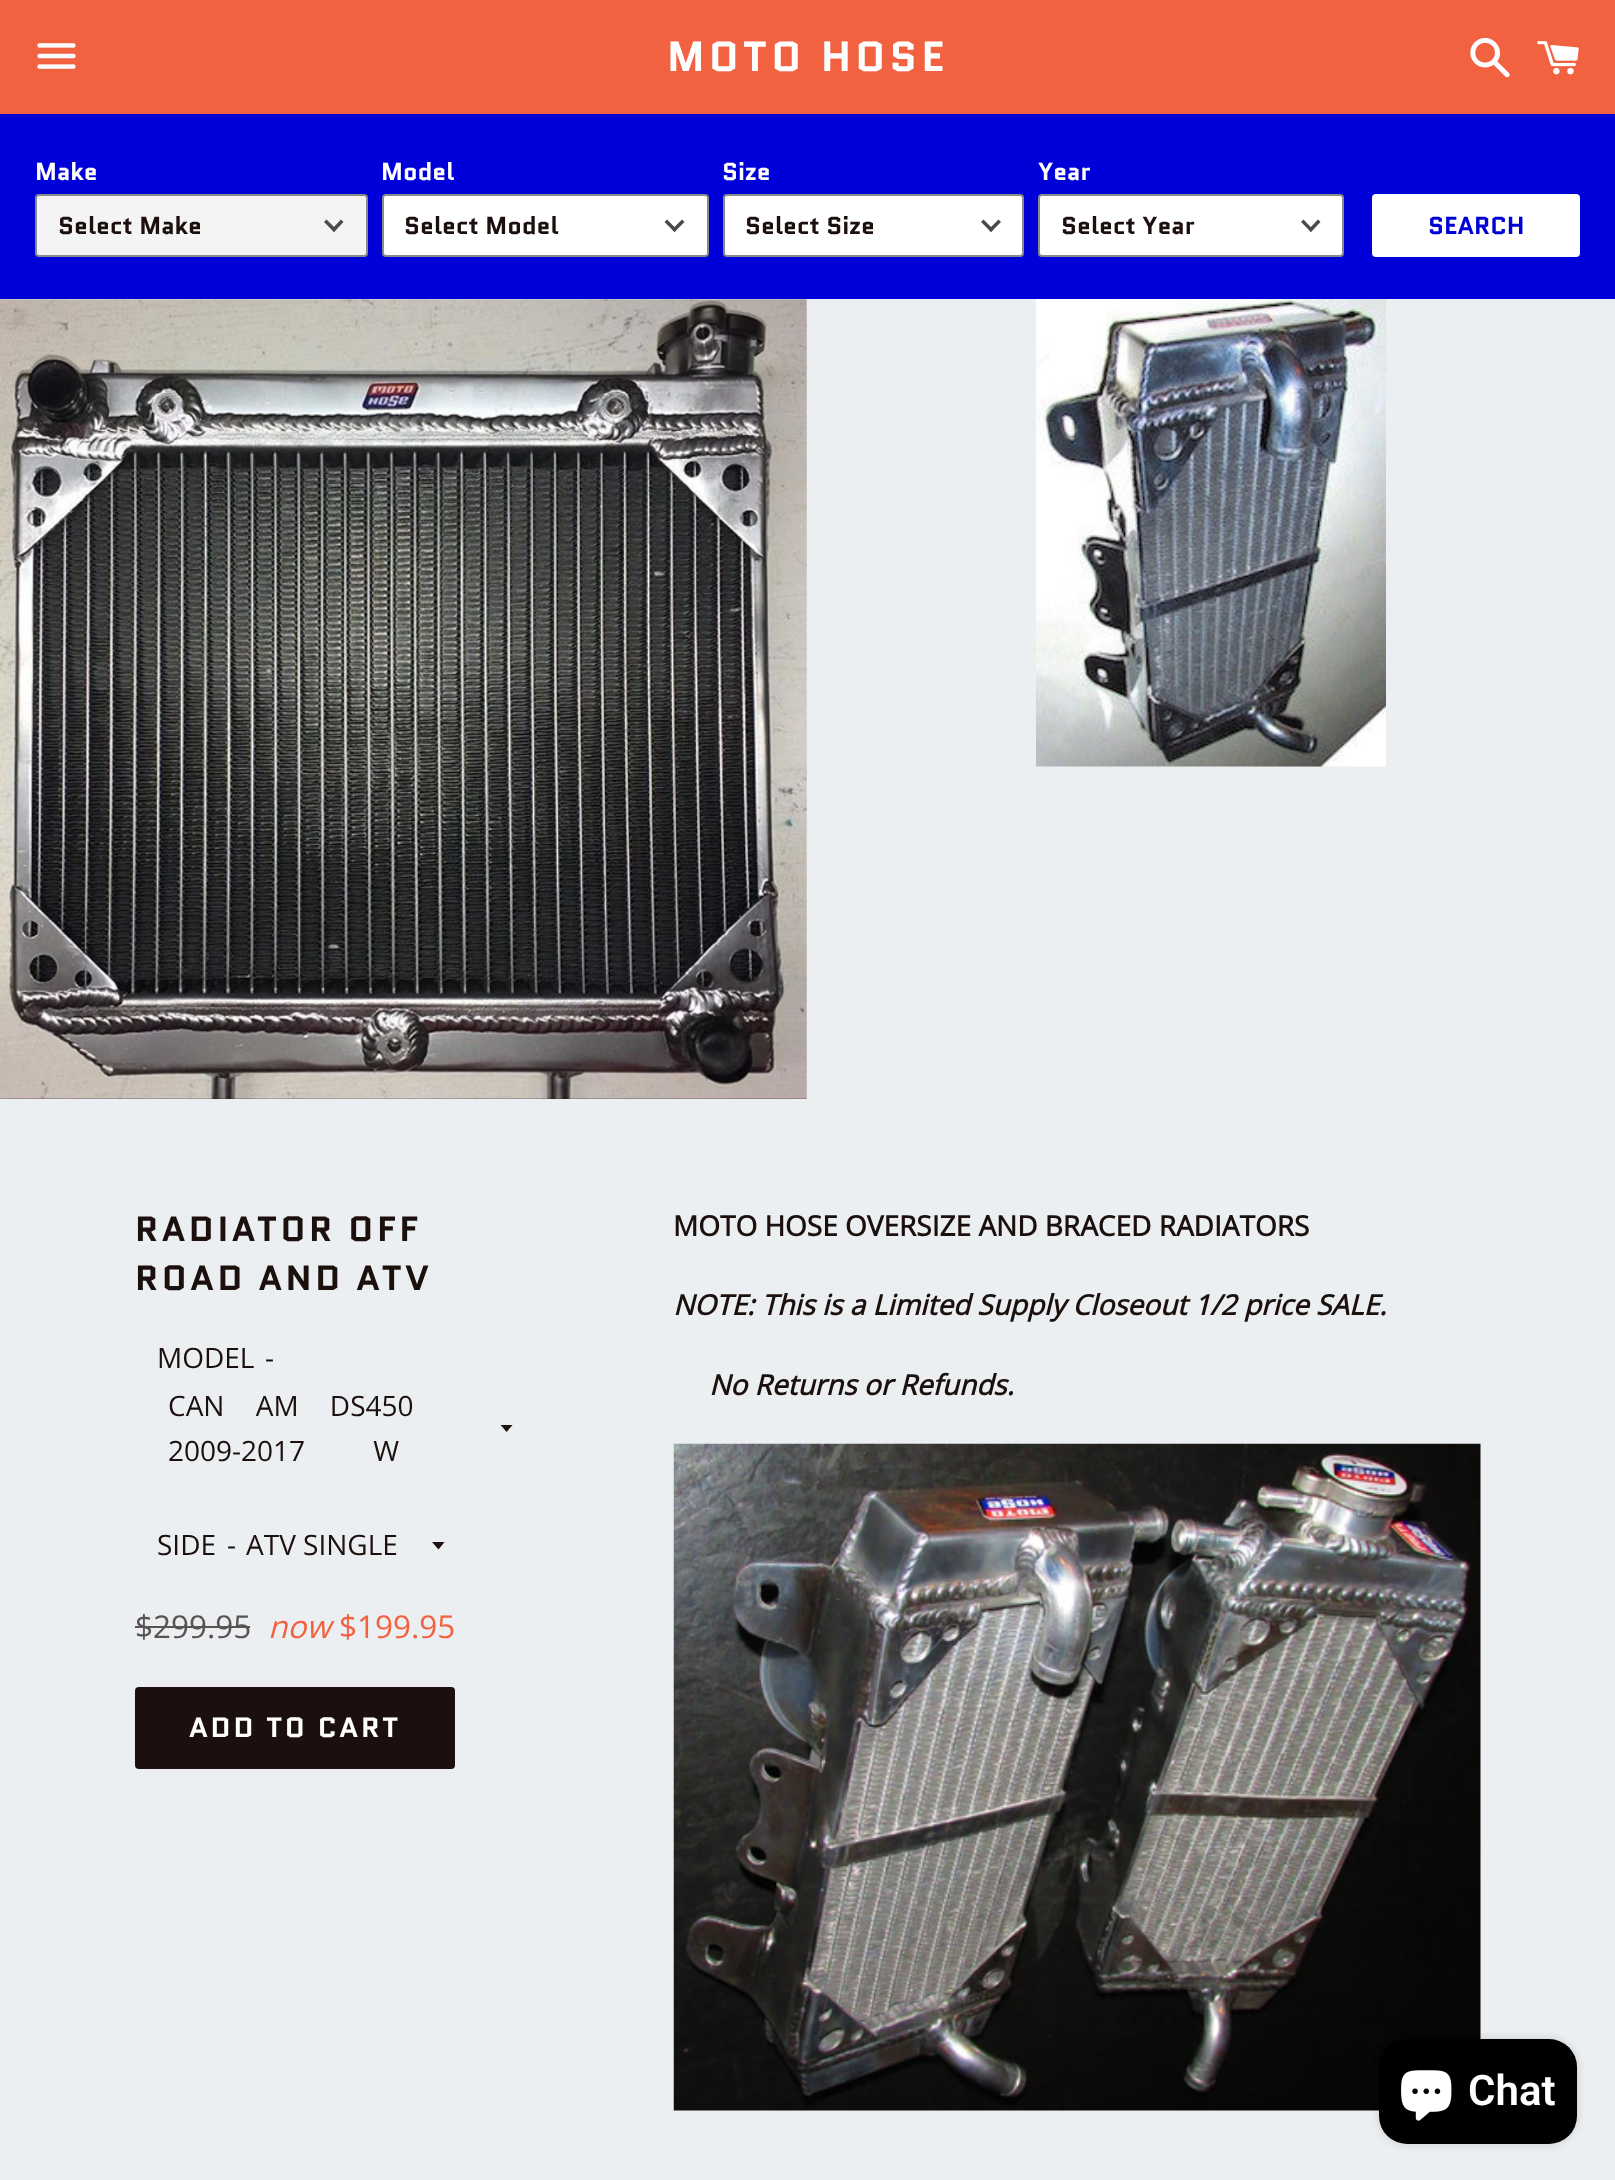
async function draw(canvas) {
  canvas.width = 1615;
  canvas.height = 2180;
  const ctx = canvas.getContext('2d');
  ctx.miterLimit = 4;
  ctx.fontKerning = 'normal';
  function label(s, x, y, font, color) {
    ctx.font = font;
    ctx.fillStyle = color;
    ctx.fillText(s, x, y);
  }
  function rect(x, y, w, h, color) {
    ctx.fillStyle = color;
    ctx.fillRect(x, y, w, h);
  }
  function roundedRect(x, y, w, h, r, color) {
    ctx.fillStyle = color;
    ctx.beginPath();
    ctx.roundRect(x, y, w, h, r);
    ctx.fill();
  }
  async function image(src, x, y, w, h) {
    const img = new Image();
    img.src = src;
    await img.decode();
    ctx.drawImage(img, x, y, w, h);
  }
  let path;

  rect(0, 0, 1615, 2180, '#eceff1');
  rect(0, 0, 1615, 114, '#f26241');
  await image('assets/img1.png', 37, 43, 39, 26);
  ctx.letterSpacing = '4.25px';
  label('MOTO HOSE', 667, 71, 'bold 42px Quantico', '#fff');
  await image('assets/img2.png', 1470, 37, 40, 41);
  await image('assets/img3.png', 1537, 41, 42, 34);
  rect(0, 114, 1615, 185, '#0001d8');
  ctx.letterSpacing = '0px';
  label('Make', 35, 180, 'bold 24.5px Quantico', '#fff');
  ctx.fillStyle = '#f4f4f4';
  ctx.beginPath();
  ctx.roundRect(36, 195, 331, 61, 3);
  ctx.fill();
  ctx.strokeStyle = '#8a8a8a';
  ctx.lineWidth = 2;
  ctx.stroke();
  label('Select Make', 58, 234, 'bold 24.5px Quantico', '#1b100e');
  ctx.fillStyle = '#4a4a4a';
  path = new Path2D('M341 219.5L343.5 222L334 232L331.5 229.5Z');
  ctx.fill(path);
  path = new Path2D('M326.5 219.5L336.5 229.5L334 232L324 222Z');
  ctx.fill(path);
  label('Model', 381, 180, 'bold 24.5px Quantico', '#fff');
  ctx.beginPath();
  ctx.roundRect(383, 195, 325, 61, 3);
  ctx.fill();
  ctx.stroke();
  label('Select Model', 404, 234, 'bold 24.5px Quantico', '#1b100e');
  ctx.fillStyle = '#4a4a4a';
  path = new Path2D('M682 219.5L684.5 222L674.5 232L672 229.5Z');
  ctx.fill(path);
  path = new Path2D('M667 219.5L677 229.5L674.5 232L664.5 222Z');
  ctx.fill(path);
  label('Size', 722, 180, 'bold 24.5px Quantico', '#fff');
  ctx.beginPath();
  ctx.roundRect(724, 195, 299, 61, 3);
  ctx.fill();
  ctx.stroke();
  label('Select Size', 745, 234, 'bold 24.5px Quantico', '#1b100e');
  ctx.fillStyle = '#4a4a4a';
  path = new Path2D('M998.5 219.5L1001 222L991 232L988.5 229.5Z');
  ctx.fill(path);
  path = new Path2D('M983.5 219.5L993.5 229.5L991 232L981 222Z');
  ctx.fill(path);
  label('Year', 1038, 180, 'bold 24.5px Quantico', '#fff');
  ctx.beginPath();
  ctx.roundRect(1039, 195, 304, 61, 3);
  ctx.fill();
  ctx.stroke();
  label('Select Year', 1061, 234, 'bold 24.5px Quantico', '#1b100e');
  ctx.fillStyle = '#4a4a4a';
  path = new Path2D('M1318 219.5L1320.5 222L1311 232L1308.5 229.5Z');
  ctx.fill(path);
  path = new Path2D('M1303.5 219.5L1313 229.5L1311 232L1301 222Z');
  ctx.fill(path);
  roundedRect(1372, 194, 208, 63, 4, '#fff');
  label('SEARCH', 1428, 234, 'bold 24.5px Quantico', '#0001d8');
  await image('assets/img4.png', 0, 299, 807, 800);
  await image('assets/img5.png', 1036, 299, 350, 468);
  ctx.letterSpacing = '3.5px';
  label('RADIATOR OFF', 135, 1241, 'bold 35px Quantico', '#1b100e');
  label('ROAD AND ATV', 135, 1290, 'bold 35px Quantico', '#1b100e');
  ctx.letterSpacing = '0px';
  label('MODEL', 157, 1368, '28px Open Sans', '#1b100e');
  label('-', 265, 1368, '28px Open Sans', '#1b100e');
  ctx.save();
  ctx.beginPath();
  ctx.rect(501, 1425, 14, 8);
  ctx.clip();
  path = new Path2D('M500.5 1424.5L506.5 1432L513 1424.5Z');
  ctx.fill(path);
  ctx.restore();
  ctx.wordSpacing = '24px';
  label('CAN AM DS450', 168, 1416, '28px Open Sans', '#1b100e');
  ctx.wordSpacing = '61px';
  label('2009-2017 W', 168, 1461, '28px Open Sans', '#1b100e');
  ctx.wordSpacing = '0px';
  label('SIDE', 157, 1555, '28px Open Sans', '#1b100e');
  label('-', 227, 1555, '28px Open Sans', '#1b100e');
  path = new Path2D('M432 1542L438.5 1549.5L444.5 1542Z');
  ctx.fill(path);
  label('ATV SINGLE', 246, 1555, '28px Open Sans', '#1b100e');
  label('$299.95', 135, 1638, '31.5px Open Sans', '#5a5352');
  rect(135, 1626, 115, 2, '#5a5352');
  label('now', 268, 1638, 'italic 31.5px Open Sans', '#f26241');
  label('$199.95', 339, 1638, '31.5px Open Sans', '#f26241');
  roundedRect(135, 1687, 320, 82, 4, '#1b100e');
  ctx.letterSpacing = '2.75px';
  label('ADD TO CART', 189, 1737, 'bold 28px Quantico', '#fff');
  ctx.letterSpacing = '0px';
  label('MOTO HOSE OVERSIZE AND BRACED RADIATORS', 673, 1236, 'bold 28px Open Sans', '#1b100e');
  label('NOTE: This is a Limited Supply Closeout 1/2 price SALE.', 673, 1315, 'italic bold 28px Open Sans', '#1b100e');
  label('No Returns or Refunds.', 709, 1395, 'italic bold 28px Open Sans', '#1b100e');
  await image('assets/img6.png', 673, 1443, 808, 668);
  ctx.fillStyle = '#00000026';
  ctx.filter = 'blur(4.5px)';
  ctx.beginPath();
  ctx.roundRect(1379, 2039, 198, 105, 28);
  ctx.fill();
  ctx.filter = 'none';
  roundedRect(1379, 2039, 198, 105, 28, '#000');
  await image('assets/img7.png', 1401, 2070, 51, 51);
  label('Chat', 1468, 2105, '600 42px Roboto', '#fff');
}

draw(document.querySelector('canvas'));
